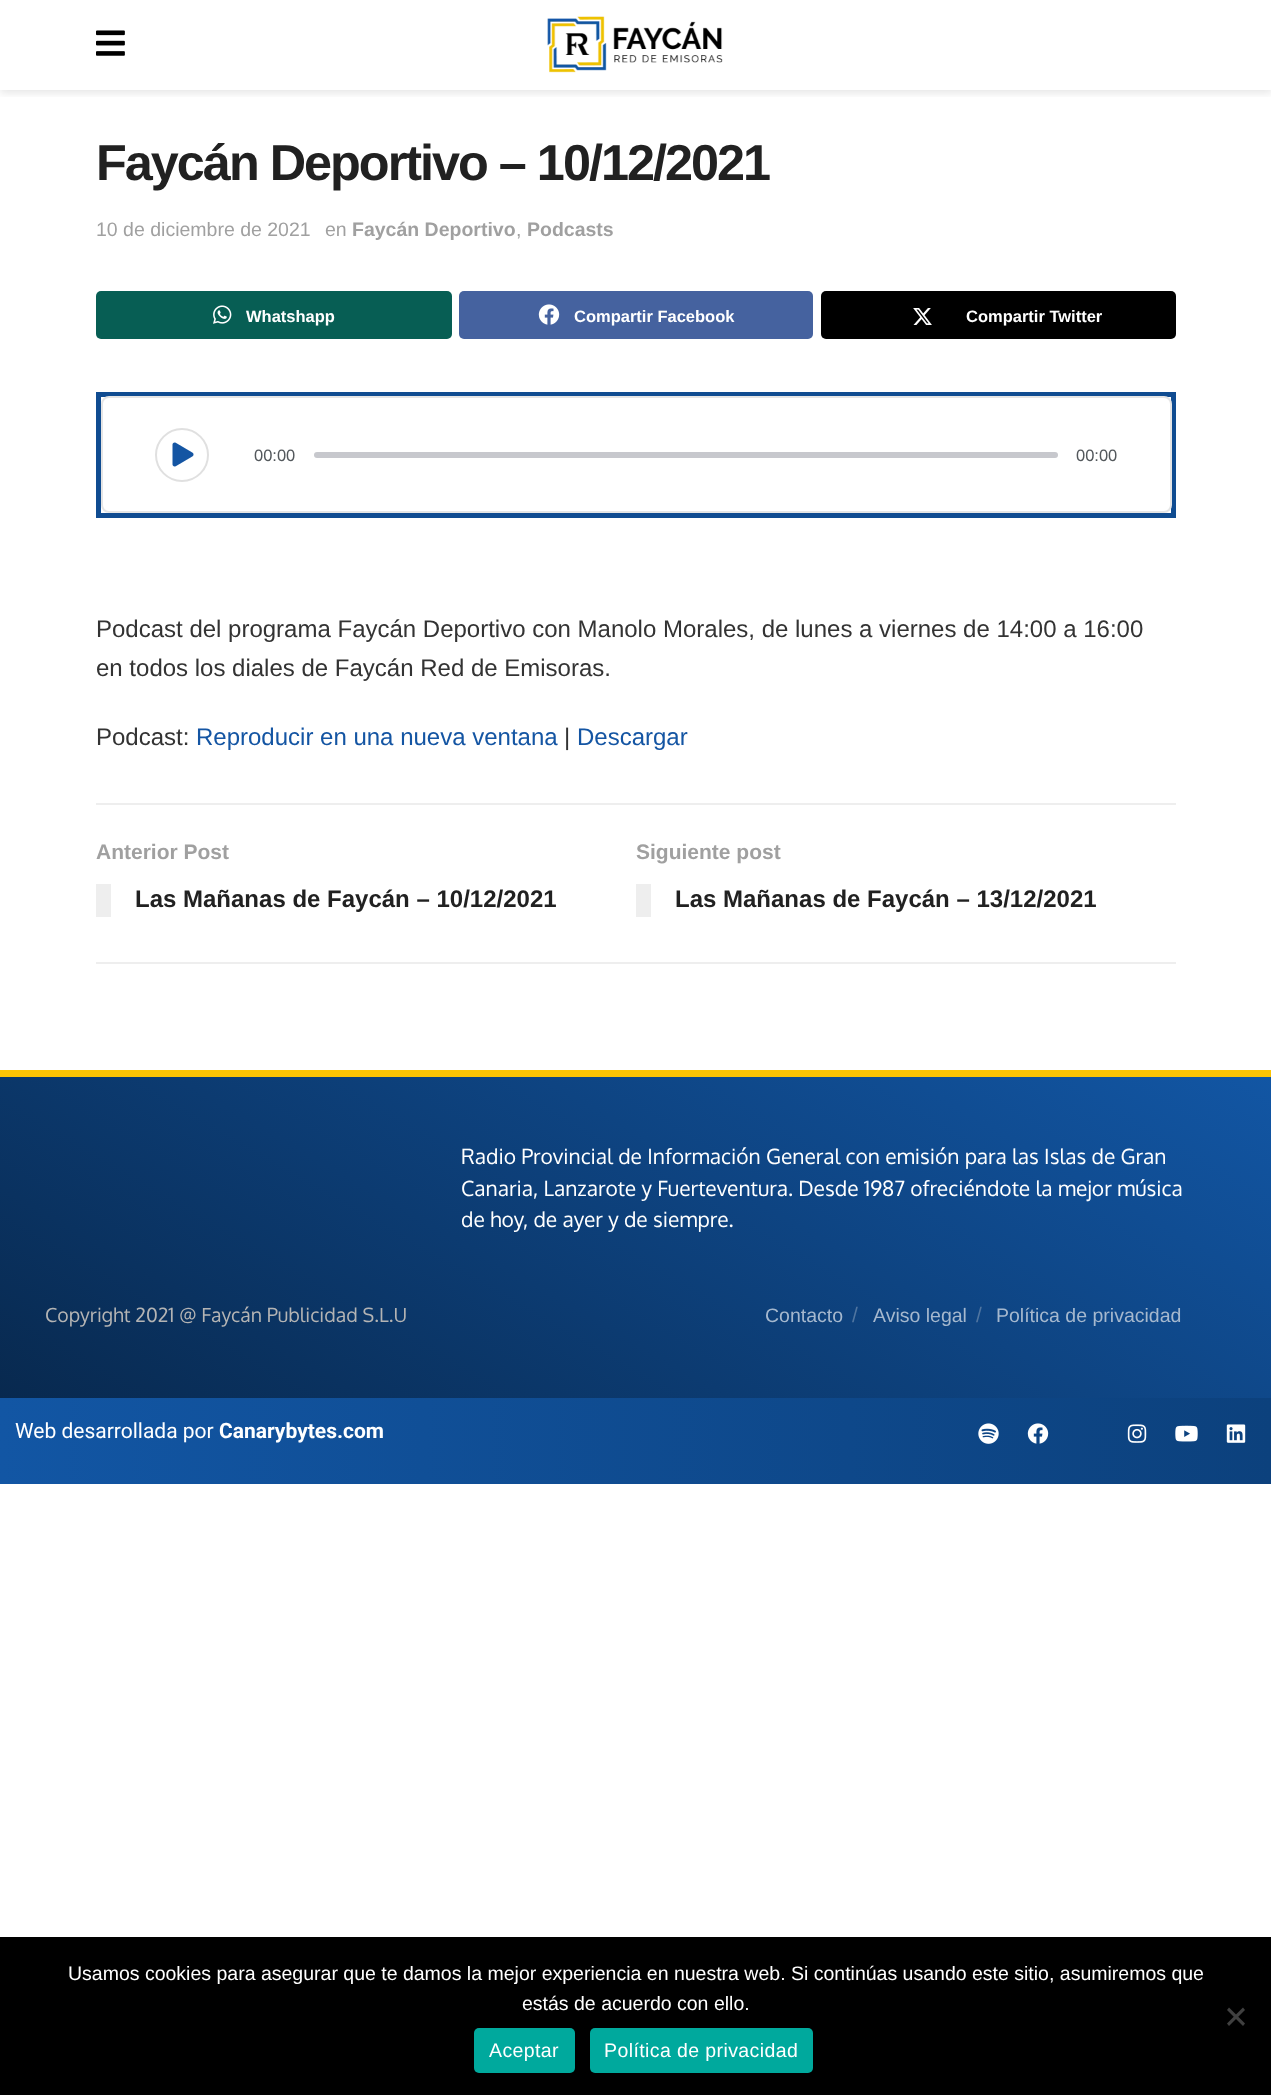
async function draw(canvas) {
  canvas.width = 1271;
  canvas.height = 2095;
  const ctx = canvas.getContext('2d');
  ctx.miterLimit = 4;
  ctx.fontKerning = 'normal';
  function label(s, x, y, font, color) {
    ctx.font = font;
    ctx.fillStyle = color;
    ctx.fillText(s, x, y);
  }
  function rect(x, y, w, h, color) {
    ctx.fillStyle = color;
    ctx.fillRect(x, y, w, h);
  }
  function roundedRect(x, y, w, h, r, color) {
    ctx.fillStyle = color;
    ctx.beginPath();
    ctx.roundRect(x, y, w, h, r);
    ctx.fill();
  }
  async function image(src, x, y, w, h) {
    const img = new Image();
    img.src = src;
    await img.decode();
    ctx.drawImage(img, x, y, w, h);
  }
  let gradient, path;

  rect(0, 0, 1271, 2095, '#fff');
  ctx.save();
  ctx.beginPath();
  ctx.rect(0, 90, 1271, 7);
  ctx.clip();
  ctx.fillStyle = '#0000001a';
  ctx.filter = 'blur(4.5px)';
  ctx.beginPath();
  ctx.rect(0, 3, 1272, 90);
  ctx.fill();
  ctx.filter = 'none';
  ctx.restore();
  await image('assets/img1.png', 96, 30, 29, 26);
  await image('assets/img2.png', 547, 16, 176, 57);
  ctx.letterSpacing = '-2px';
  label('Faycán Deportivo – 10/12/2021', 96, 180, 'bold 50.4px Liberation Sans', '#212121');
  ctx.letterSpacing = '0px';
  label('10 de diciembre de 2021', 96, 236, '19.5px Liberation Sans', '#a0a0a0');
  label('en', 325, 236, '19.5px Liberation Sans', '#a0a0a0');
  label('Faycán Deportivo', 352, 236, 'bold 19.5px Liberation Sans', '#a0a0a0');
  label(',', 516, 236, '19.5px Liberation Sans', '#a0a0a0');
  label('Podcasts', 527, 236, 'bold 19.5px Liberation Sans', '#a0a0a0');
  roundedRect(96, 291, 356, 48, 5, '#075e54');
  await image('assets/img3.png', 213, 305, 19, 19);
  label('Whatshapp', 246, 322, 'bold 16.5px Liberation Sans', '#fff');
  roundedRect(459, 291, 354, 48, 5, '#45629f');
  await image('assets/img4.png', 538, 304, 22, 21);
  label('Compartir Facebook', 574, 322, 'bold 16.5px Liberation Sans', '#fff');
  roundedRect(821, 291, 355, 48, 5, '#000');
  await image('assets/img5.png', 913, 308, 19, 17);
  label('Compartir Twitter', 966, 322, 'bold 16.5px Liberation Sans', '#fff');
  ctx.strokeStyle = '#104c91';
  ctx.lineWidth = 5;
  ctx.strokeRect(98.5, 394.5, 1075, 121);
  roundedRect(101, 396, 1071, 117, 8, '#fff');
  ctx.beginPath();
  ctx.roundRect(102, 397, 1069, 115, 7);
  ctx.strokeStyle = '#0000001a';
  ctx.lineWidth = 2;
  ctx.stroke();
  ctx.beginPath();
  ctx.arc(182, 455, 26, 0, 2 * Math.PI);
  ctx.strokeStyle = '#e0e0e0';
  ctx.stroke();
  await image('assets/img6.png', 172, 442, 22, 25);
  label('00:00', 254, 461, '16.5px Liberation Sans', '#53585c');
  roundedRect(314, 452, 744, 6, 3, '#c7c8cd');
  label('00:00', 1076, 461, '16.5px Liberation Sans', '#53585c');
  label('Podcast del programa Faycán Deportivo con Manolo Morales, de lunes a viernes de 14:00 a 16:00', 96, 637, '24px Liberation Sans', '#333');
  label('en todos los diales de Faycán Red de Emisoras.', 96, 676, '24px Liberation Sans', '#333');
  label('Podcast:', 96, 745, '24px Liberation Sans', '#333');
  label('Reproducir en una nueva ventana', 196, 745, '24px Liberation Sans', '#1455a3');
  label('|', 564, 745, '24px Liberation Sans', '#333');
  label('Descargar', 577, 745, '24px Liberation Sans', '#1455a3');
  rect(96, 803, 1080, 2, '#eee');
  rect(96, 962, 1080, 2, '#eee');
  label('Anterior Post', 96, 859, 'bold 21px Liberation Sans', '#a0a0a0');
  rect(96, 884, 15, 33, '#eee');
  label('Las Mañanas de Faycán – 10/12/2021', 135, 907, 'bold 24px Liberation Sans', '#212121');
  label('Siguiente post', 636, 859, 'bold 21px Liberation Sans', '#a0a0a0');
  rect(636, 884, 15, 33, '#eee');
  label('Las Mañanas de Faycán – 13/12/2021', 675, 907, 'bold 24px Liberation Sans', '#212121');
  gradient = ctx.createLinearGradient(408, 1633, 864, 842);
  gradient.addColorStop(0, '#08294f');
  gradient.addColorStop(1, '#1256a4');
  ctx.fillStyle = gradient;
  ctx.fillRect(0, 1077, 1271, 321);
  rect(0, 1070, 1271, 7, '#fcc404');
  label('Radio Provincial de Información General con emisión para las Islas de Gran', 461, 1164, '21px Oxygen', '#fff');
  label('Canaria, Lanzarote y Fuerteventura. Desde 1987 ofreciéndote la mejor música', 461, 1196, '21px Oxygen', '#fff');
  label('de hoy, de ayer y de siempre.', 461, 1227, '21px Oxygen', '#fff');
  label('Copyright 2021 @ Faycán Publicidad S.L.U', 45, 1322, '19.5px Oxygen', '#b4b4b4');
  label('Contacto', 765, 1322, '19.5px Liberation Sans', '#a5b8ce');
  label('/', 852, 1322, '21px Liberation Sans', '#4f75a0');
  label('Aviso legal', 873, 1322, '19.5px Liberation Sans', '#a5b8ce');
  label('/', 976, 1322, '21px Liberation Sans', '#4f75a0');
  label('Política de privacidad', 996, 1322, '19.5px Liberation Sans', '#a5b8ce');
  gradient = ctx.createLinearGradient(0, 1441, 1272, 1441);
  gradient.addColorStop(0, '#1256a4');
  gradient.addColorStop(1, '#0c417d');
  ctx.fillStyle = gradient;
  ctx.fillRect(0, 1398, 1271, 86);
  label('Web desarrollada por', 15, 1438, '21px Roboto', '#fff');
  label('Canarybytes.com', 219, 1438, 'bold 21px Roboto', '#fff');
  await image('assets/img7.png', 978, 1423, 21, 21);
  await image('assets/img8.png', 1027, 1423, 22, 21);
  await image('assets/img9.png', 1127, 1424, 20, 19);
  await image('assets/img10.png', 1175, 1425, 23, 17);
  await image('assets/img11.png', 1226, 1424, 20, 19);
  rect(0, 1937, 1271, 158, '#000');
  label('Usamos cookies para asegurar que te damos la mejor experiencia en nuestra web. Si continúas usando este sitio, asumiremos que', 68, 1980, '19.5px Liberation Sans', '#fff');
  label('estás de acuerdo con ello.', 522, 2010, '19.5px Liberation Sans', '#fff');
  ctx.fillStyle = '#404040';
  path = new Path2D('M1243 2007.5L1245 2010L1229 2026L1227 2023.5Z');
  ctx.fill(path);
  path = new Path2D('M1227 2010L1229 2007.5L1245 2023.5L1243 2026Z');
  ctx.fill(path);
  roundedRect(474, 2028, 101, 45, 5, '#00a99d');
  ctx.letterSpacing = '0.4px';
  label('Aceptar', 489, 2057, '19.5px Liberation Sans', '#fff');
  roundedRect(590, 2028, 223, 45, 5, '#00a99d');
  label('Política de privacidad', 604, 2057, '19.5px Liberation Sans', '#fff');
}

draw(document.querySelector('canvas'));
